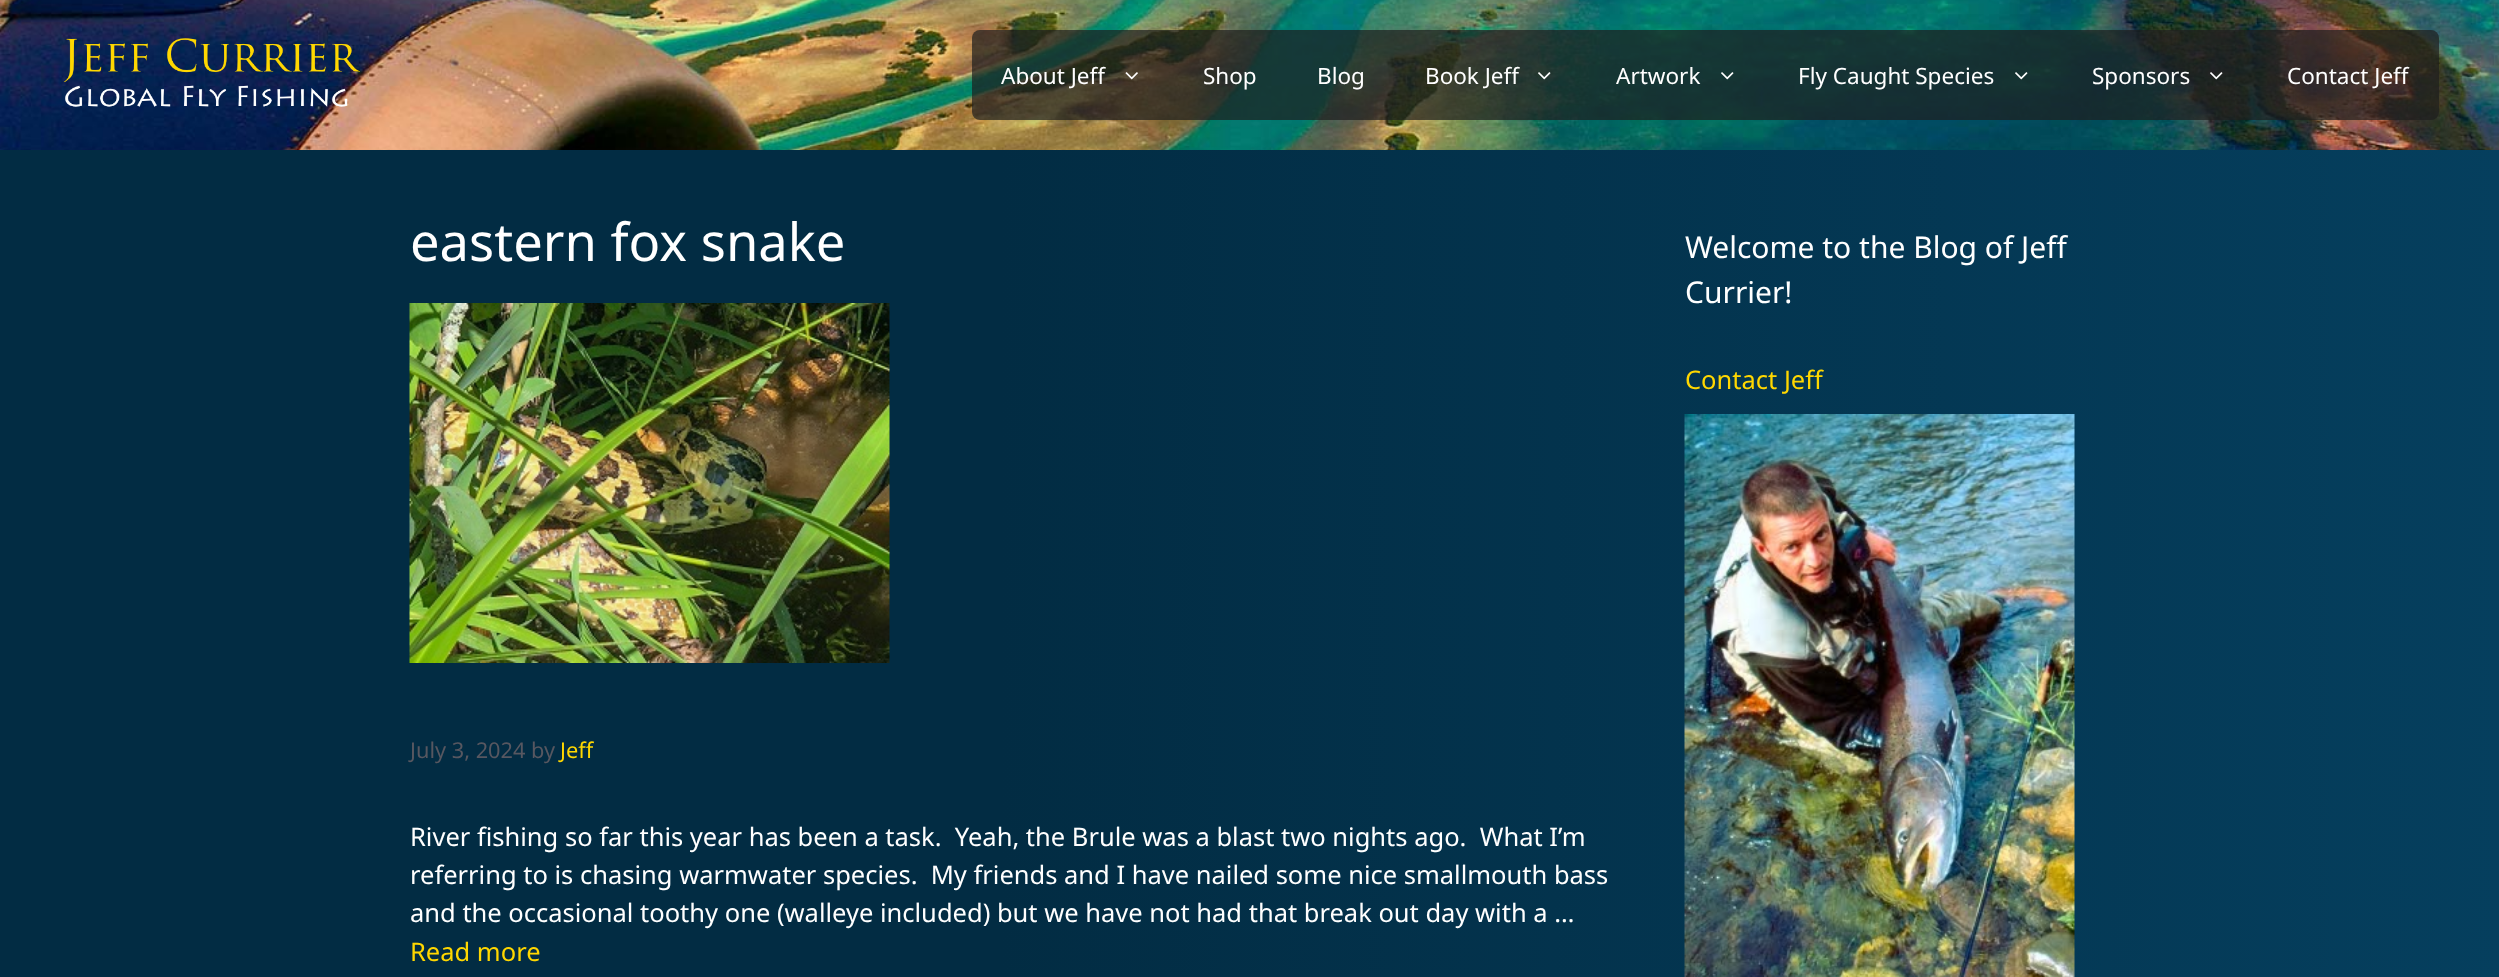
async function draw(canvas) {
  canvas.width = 2499;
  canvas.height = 977;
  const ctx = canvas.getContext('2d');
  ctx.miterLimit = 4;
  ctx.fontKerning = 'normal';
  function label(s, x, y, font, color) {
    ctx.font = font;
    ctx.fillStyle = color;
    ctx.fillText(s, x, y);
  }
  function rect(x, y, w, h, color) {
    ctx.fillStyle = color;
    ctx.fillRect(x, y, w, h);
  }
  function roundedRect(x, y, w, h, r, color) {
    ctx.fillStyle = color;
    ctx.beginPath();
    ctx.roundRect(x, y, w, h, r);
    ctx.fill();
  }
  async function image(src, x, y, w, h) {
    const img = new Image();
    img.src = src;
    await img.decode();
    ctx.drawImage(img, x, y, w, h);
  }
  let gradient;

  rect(0, 0, 2499, 977, '#fff');
  gradient = ctx.createLinearGradient(0, 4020, 2499, 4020);
  gradient.addColorStop(0.4, '#022c43');
  gradient.addColorStop(1, '#053f5e');
  ctx.fillStyle = gradient;
  ctx.fillRect(0, 150, 2499, 827);
  await image('assets/img1.png', 0, 0, 2499, 150);
  await image('assets/img2.png', 63, 38, 297, 69);
  roundedRect(972, 30, 1467, 90, 8, '#1e1e1eb3');
  label('About Jeff', 1001, 84, '22.5px Noto Sans', '#fff');
  await image('assets/img3.png', 1125, 72, 13, 8);
  label('Shop', 1203, 84, '22.5px Noto Sans', '#fff');
  label('Blog', 1317, 84, '22.5px Noto Sans', '#fff');
  label('Book Jeff', 1425, 84, '22.5px Noto Sans', '#fff');
  await image('assets/img4.png', 1538, 72, 13, 8);
  label('Artwork', 1616, 84, '22.5px Noto Sans', '#fff');
  await image('assets/img5.png', 1721, 72, 13, 8);
  label('Fly Caught Species', 1798, 84, '22.5px Noto Sans', '#fff');
  await image('assets/img6.png', 2015, 72, 13, 8);
  label('Sponsors', 2092, 84, '22.5px Noto Sans', '#fff');
  await image('assets/img7.png', 2210, 72, 13, 8);
  label('Contact Jeff', 2287, 84, '22.5px Noto Sans', '#fff');
  label('eastern fox snake', 410, 261, '52.5px Noto Sans', '#fff');
  await image('assets/img8.png', 409, 303, 481, 360);
  label('July 3, 2024 by', 410, 758, '21.75px Noto Sans', '#575760');
  label('Jeff', 560, 758, '21.75px Noto Sans', '#ffd700');
  label('River fishing so far this year has been a task.  Yeah, the Brule was a blast two nights ago.  What I’m', 410, 846, '25.5px Noto Sans', '#fff');
  label('referring to is chasing warmwater species.  My friends and I have nailed some nice smallmouth bass', 410, 884, '25.5px Noto Sans', '#fff');
  label('and the occasional toothy one (walleye included) but we have not had that break out day with a …', 410, 922, '25.5px Noto Sans', '#fff');
  label('Read more', 410, 961, '25.5px Noto Sans', '#ffd700');
  label('Welcome to the Blog of Jeff', 1685, 258, '30px Noto Sans', '#fff');
  label('Currier!', 1685, 303, '30px Noto Sans', '#fff');
  label('Contact Jeff', 1685, 389, '25.5px Noto Sans', '#ffd700');
  await image('assets/img9.png', 1684, 414, 391, 563);
}

draw(document.querySelector('canvas'));
